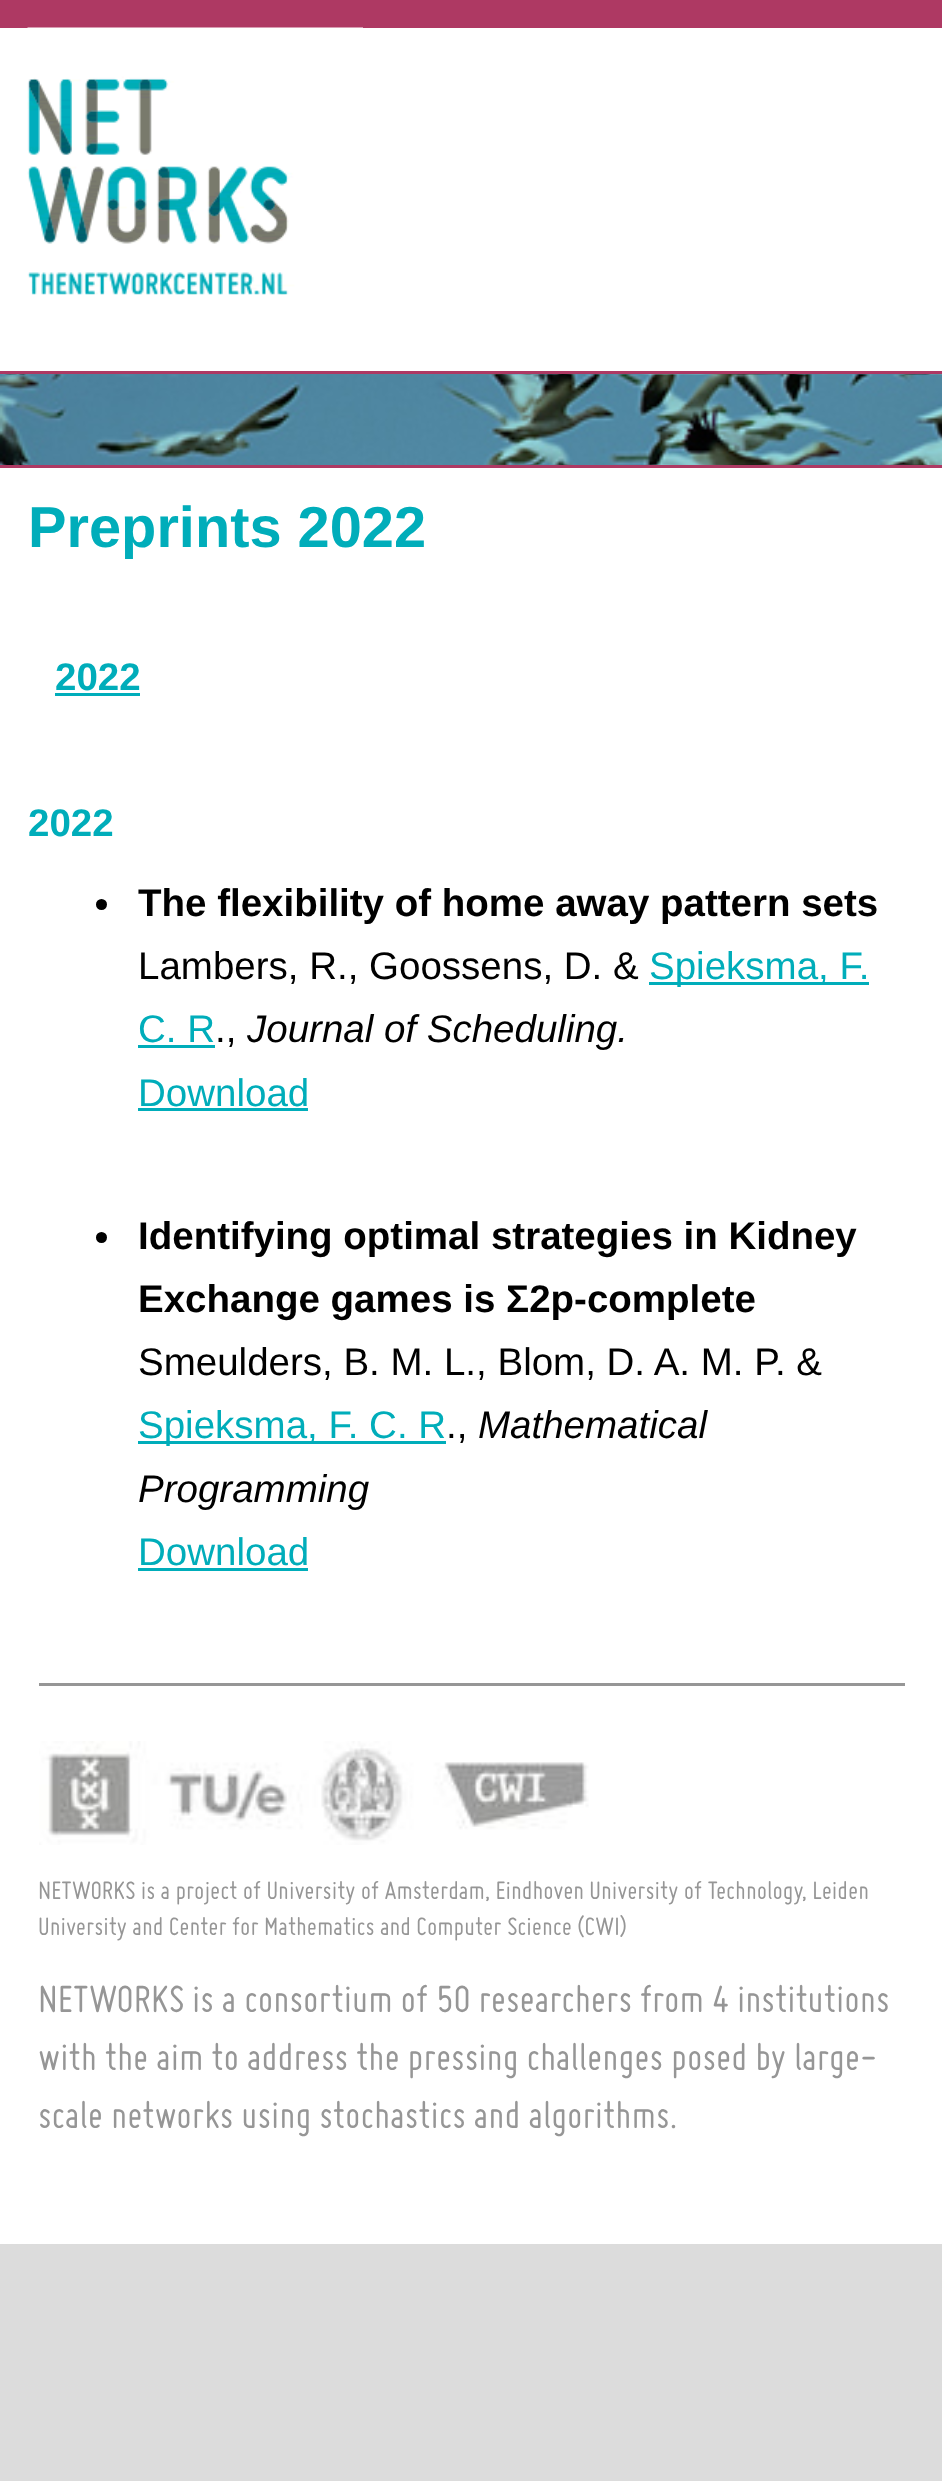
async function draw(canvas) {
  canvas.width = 942;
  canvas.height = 2481;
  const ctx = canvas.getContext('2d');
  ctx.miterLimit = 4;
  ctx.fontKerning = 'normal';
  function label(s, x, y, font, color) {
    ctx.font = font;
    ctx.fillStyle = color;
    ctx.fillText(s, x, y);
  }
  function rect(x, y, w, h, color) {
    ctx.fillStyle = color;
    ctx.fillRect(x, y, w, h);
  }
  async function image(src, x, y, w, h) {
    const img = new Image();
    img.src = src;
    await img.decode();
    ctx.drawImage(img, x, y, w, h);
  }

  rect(0, 0, 942, 2481, '#dcdcdc');
  rect(0, 28, 942, 2216, '#fff');
  rect(0, 0, 942, 28, '#ae3963');
  await image('assets/img1.png', 27, 27, 336, 268);
  await image('assets/img2.png', 0, 374, 942, 91);
  rect(0, 371, 942, 3, '#ae3963');
  rect(0, 465, 942, 3, '#ae3963');
  label('Preprints 2022', 28, 547, 'bold 57.75px Liberation Sans', '#00adba');
  label('2022', 55, 690, 'bold 38.5px Liberation Sans', '#00adba');
  rect(55, 693, 85, 3, '#00adba');
  label('2022', 28, 836, 'bold 38.5px Liberation Sans', '#00adba');
  ctx.fillStyle = '#000';
  ctx.beginPath();
  ctx.arc(101.5, 904.5, 5.5, 0, 2 * Math.PI);
  ctx.fill();
  label('The flexibility of home away pattern sets', 138, 916, 'bold 38.5px Liberation Sans', '#000');
  label('Lambers, R., Goossens, D. &', 138, 979, '38.5px Liberation Sans', '#000');
  rect(649, 982, 168, 3, '#00adba');
  label('Spieksma', 649, 979, '38.5px Liberation Sans', '#00adba');
  rect(817, 982, 52, 3, '#00adba');
  label(', F.', 818, 979, '38.5px Liberation Sans', '#00adba');
  label('C. R', 138, 1042, '38.5px Liberation Sans', '#00adba');
  label('.,', 215, 1042, '38.5px Liberation Sans', '#000');
  rect(138, 1045, 77, 3, '#00adba');
  label('Journal of Scheduling.', 247, 1042, 'italic 38.5px Liberation Sans', '#000');
  label('Download', 138, 1106, '38.5px Liberation Sans', '#00adba');
  rect(138, 1108, 170, 3, '#00adba');
  ctx.fillStyle = '#000';
  ctx.beginPath();
  ctx.arc(101.5, 1237.5, 5.5, 0, 2 * Math.PI);
  ctx.fill();
  label('Identifying optimal strategies in Kidney', 138, 1249, 'bold 38.5px Liberation Sans', '#000');
  label('Exchange games is Σ2p-complete', 138, 1312, 'bold 38.5px Liberation Sans', '#000');
  label('Smeulders, B. M. L., Blom, D. A. M. P. &', 138, 1375, '38.5px Liberation Sans', '#000');
  rect(138, 1441, 308, 3, '#00adba');
  label('Spieksma, F. C. R', 138, 1438, '38.5px Liberation Sans', '#00adba');
  label('.,', 446, 1438, '38.5px Liberation Sans', '#000');
  label('Mathematical', 478, 1438, 'italic 38.5px Liberation Sans', '#000');
  label('Programming', 138, 1502, 'italic 38.5px Liberation Sans', '#000');
  label('Download', 138, 1565, '38.5px Liberation Sans', '#00adba');
  rect(138, 1568, 170, 3, '#00adba');
  rect(39, 1683, 866, 3, '#969696');
  await image('assets/img3.png', 39, 1741, 550, 104);
  label('NETWORKS is a project of University of Amsterdam, Eindhoven University of Technology, Leiden', 38, 1899, 'italic 27.5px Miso', '#969696');
  label('University and Center for Mathematics and Computer Science (CWI)', 38, 1935, 'italic 27.5px Miso', '#969696');
  label('NETWORKS is a consortium of 50 researchers from 4 institutions', 38, 2012, 'italic 41.25px Miso', '#969696');
  label('with the aim to address the pressing challenges posed by large-', 38, 2070, 'italic 41.25px Miso', '#969696');
  label('scale networks using stochastics and algorithms.', 38, 2128, 'italic 41.25px Miso', '#969696');
}

draw(document.querySelector('canvas'));
